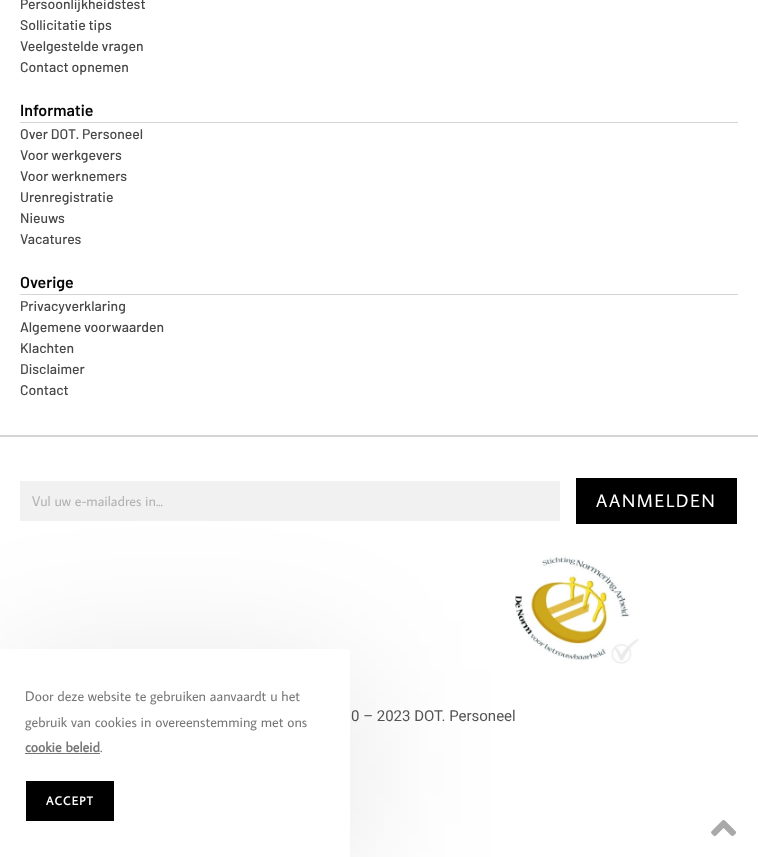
async function draw(canvas) {
  canvas.width = 758;
  canvas.height = 857;
  const ctx = canvas.getContext('2d');
  ctx.miterLimit = 4;
  ctx.fontKerning = 'normal';
  function label(s, x, y, font, color) {
    ctx.font = font;
    ctx.fillStyle = color;
    ctx.fillText(s, x, y);
  }
  function rect(x, y, w, h, color) {
    ctx.fillStyle = color;
    ctx.fillRect(x, y, w, h);
  }
  async function image(src, x, y, w, h) {
    const img = new Image();
    img.src = src;
    await img.decode();
    ctx.drawImage(img, x, y, w, h);
  }

  rect(0, 0, 758, 857, '#fff');
  rect(0, 435, 758, 2, '#d4d4d4');
  label('Persoonlijkheidstest', 20, 9, '500 14px Barlow', '#474747');
  label('Sollicitatie tips', 20, 30, '500 14px Barlow', '#474747');
  label('Veelgestelde vragen', 20, 51, '500 14px Barlow', '#474747');
  label('Contact opnemen', 20, 72, '500 14px Barlow', '#474747');
  rect(20, 122, 718, 1, '#d4d4d4');
  label('Informatie', 20, 116, '600 16px Barlow', '#050505');
  label('Over DOT. Personeel', 20, 139, '500 14px Barlow', '#474747');
  label('Voor werkgevers', 20, 160, '500 14px Barlow', '#474747');
  label('Voor werknemers', 20, 181, '500 14px Barlow', '#474747');
  label('Urenregistratie', 20, 202, '500 14px Barlow', '#474747');
  label('Nieuws', 20, 223, '500 14px Barlow', '#474747');
  label('Vacatures', 20, 244, '500 14px Barlow', '#474747');
  rect(20, 294, 718, 1, '#d4d4d4');
  label('Overige', 20, 288, '600 16px Barlow', '#050505');
  label('Privacyverklaring', 20, 311, '500 14px Barlow', '#474747');
  label('Algemene voorwaarden', 20, 332, '500 14px Barlow', '#474747');
  label('Klachten', 20, 353, '500 14px Barlow', '#474747');
  label('Disclaimer', 20, 374, '500 14px Barlow', '#474747');
  label('Contact', 20, 395, '500 14px Barlow', '#474747');
  rect(20, 481, 540, 40, '#f1f1f1');
  label('Vul uw e-mailadres in...', 32, 506, '14px Average Sans', '#b1b1b1');
  rect(576, 478, 161, 46, '#000');
  ctx.letterSpacing = '1.75px';
  label('AANMELDEN', 596, 507, '18px Average Sans', '#fff');
  await image('assets/img1.png', 515, 556, 124, 108);
  ctx.letterSpacing = '0px';
  label('0 – 2023 DOT. Personeel', 351, 721, '15px Roboto', '#565656');
  ctx.fillStyle = '#0000001a';
  ctx.filter = 'blur(75px)';
  ctx.beginPath();
  ctx.roundRect(0, 669, 350, 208, 4);
  ctx.fill();
  ctx.filter = 'none';
  ctx.fillStyle = '#fff';
  ctx.beginPath();
  ctx.roundRect(0, 649, 350, 208, [0, 4, 0, 0]);
  ctx.fill();
  label('Door deze website te gebruiken aanvaardt u het', 25, 701, '14px Average Sans', '#777');
  label('gebruik van cookies in overeenstemming met ons', 25, 727, '14px Average Sans', '#777');
  label('cookie beleid', 25, 752, 'bold 14px Average Sans', '#777');
  rect(25, 753, 75, 1, '#757575');
  label('.', 100, 752, '14px Average Sans', '#777');
  rect(26, 781, 88, 40, '#000');
  ctx.letterSpacing = '1.25px';
  label('ACCEPT', 46, 805, 'bold 12px Average Sans', '#fff');
  await image('assets/img2.png', 711, 820, 25, 16);
}

draw(document.querySelector('canvas'));
